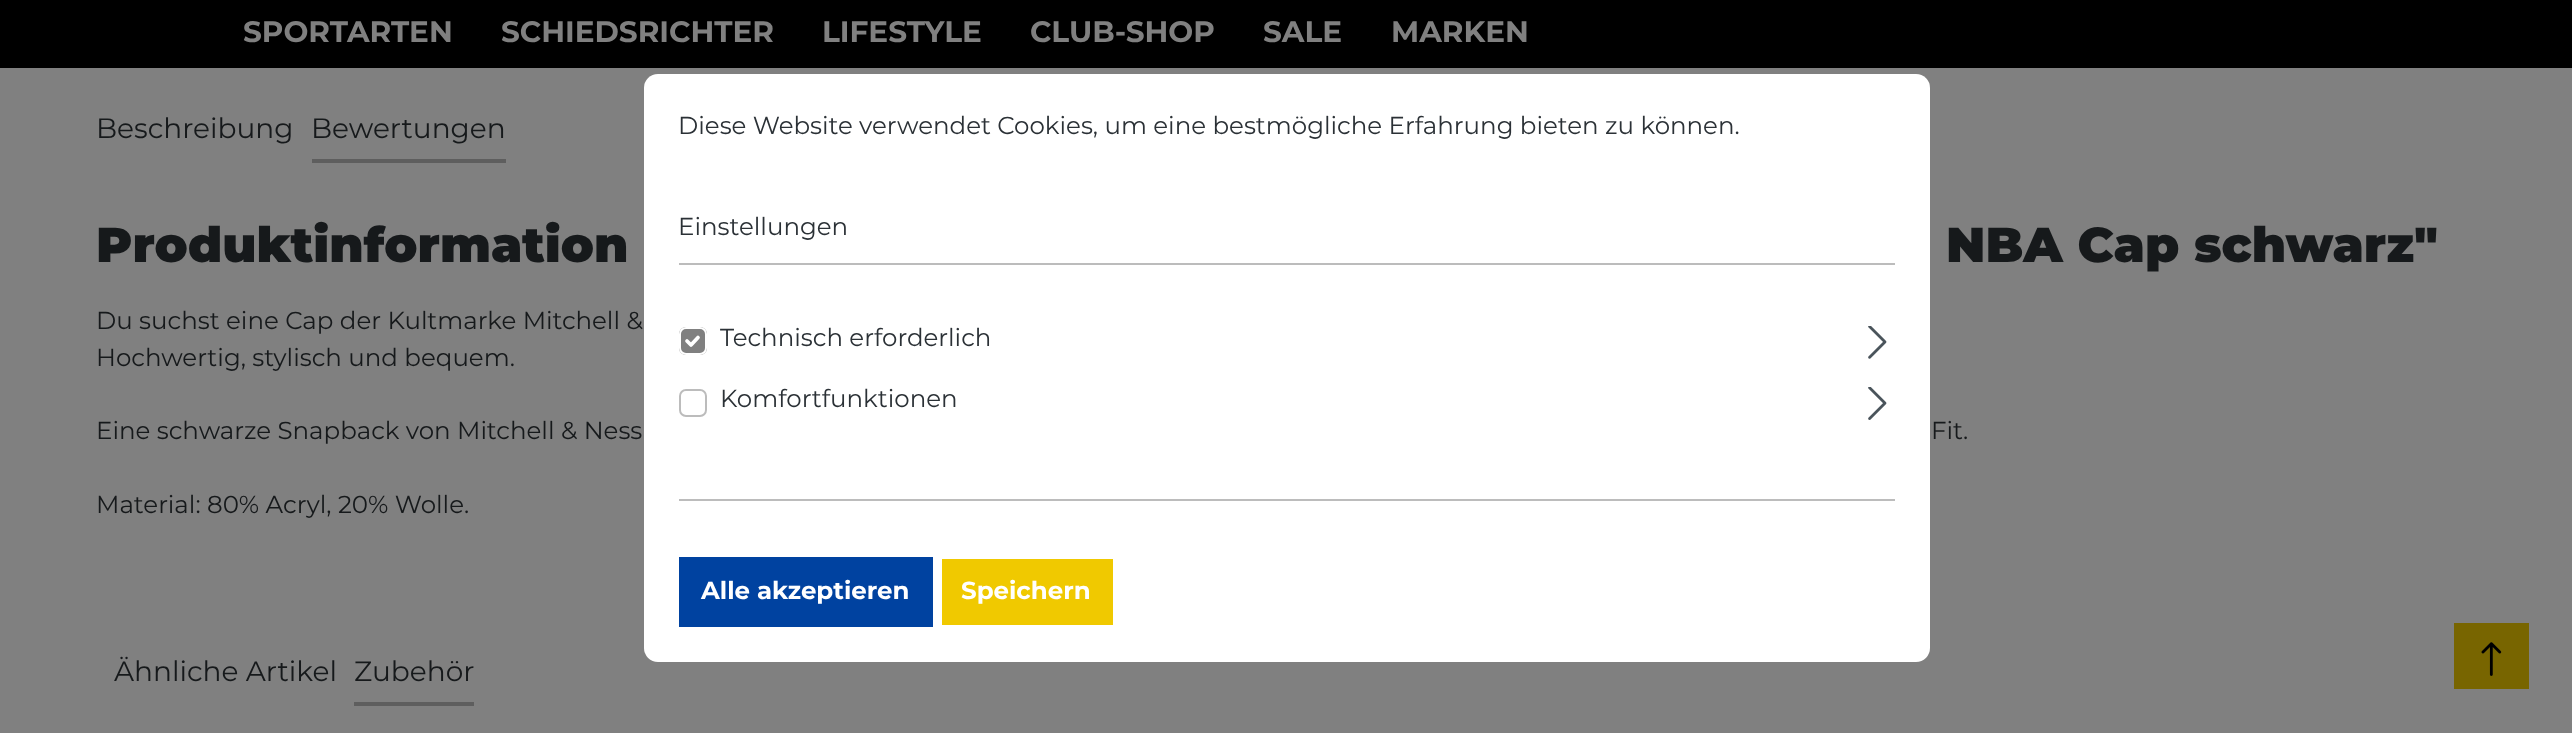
async function draw(canvas) {
  canvas.width = 2572;
  canvas.height = 733;
  const ctx = canvas.getContext('2d');
  ctx.miterLimit = 4;
  ctx.fontKerning = 'normal';
  function label(s, x, y, font, color) {
    ctx.font = font;
    ctx.fillStyle = color;
    ctx.fillText(s, x, y);
  }
  function rect(x, y, w, h, color) {
    ctx.fillStyle = color;
    ctx.fillRect(x, y, w, h);
  }
  function roundedRect(x, y, w, h, r, color) {
    ctx.fillStyle = color;
    ctx.beginPath();
    ctx.roundRect(x, y, w, h, r);
    ctx.fill();
  }
  async function image(src, x, y, w, h) {
    const img = new Image();
    img.src = src;
    await img.decode();
    ctx.drawImage(img, x, y, w, h);
  }
  let path;

  rect(0, 0, 2572, 733, '#808080');
  rect(0, 0, 2572, 68, '#000');
  label('SPORTARTEN', 243, 42, 'bold 29.5px Montserrat', '#808080');
  label('SCHIEDSRICHTER', 501, 42, 'bold 29.5px Montserrat', '#808080');
  label('LIFESTYLE', 822, 42, 'bold 29.5px Montserrat', '#808080');
  label('CLUB-SHOP', 1030, 42, 'bold 29.5px Montserrat', '#808080');
  label('SALE', 1263, 42, 'bold 29.5px Montserrat', '#808080');
  label('MARKEN', 1391, 42, 'bold 29.5px Montserrat', '#808080');
  roundedRect(644, 74, 1286, 588, 14, '#fff');
  rect(679, 263, 1216, 2, '#bcbcbc');
  label('Diese Website verwendet Cookies, um eine bestmögliche Erfahrung bieten zu können.', 678, 134, '24.5px Montserrat', '#2b3136');
  label('Einstellungen', 678, 235, '24.5px Montserrat', '#2b3136');
  rect(679, 499, 1216, 2, '#bcbcbc');
  roundedRect(679, 327, 28, 28, 7, '#808080');
  path = new Path2D('M687 341L691 345L698 337.5');
  ctx.strokeStyle = '#fff';
  ctx.lineWidth = 3.7;
  ctx.lineCap = 'round';
  ctx.lineJoin = 'round';
  ctx.stroke(path);
  ctx.beginPath();
  ctx.roundRect(680, 328, 26, 26, 6);
  ctx.lineWidth = 2;
  ctx.lineJoin = 'miter';
  ctx.stroke();
  label('Technisch erforderlich', 720, 346, '24.5px Montserrat', '#2b3136');
  await image('assets/img1.png', 1868, 326, 19, 33);
  ctx.beginPath();
  ctx.roundRect(680, 390, 26, 26, 6);
  ctx.strokeStyle = '#bcbcbc';
  ctx.stroke();
  label('Komfortfunktionen', 720, 407, '24.5px Montserrat', '#2b3136');
  await image('assets/img2.png', 1868, 387, 19, 33);
  rect(679, 557, 254, 70, '#0042a0');
  label('Alle akzeptieren', 701, 599, 'bold 24.5px Montserrat', '#fff');
  rect(942, 559, 171, 66, '#f0c900');
  label('Speichern', 961, 599, 'bold 24.5px Montserrat', '#fff');
  label('Beschreibung', 96, 138, '28px Montserrat', '#16191b');
  rect(312, 159, 194, 4, '#5e5e5e');
  label('Bewertungen', 311, 138, '28px Montserrat', '#16191b');
  label('Produktinformation', 96, 262, '900 49px Montserrat', '#16191b');
  label('NBA Cap schwarz"', 1946, 262, '900 49px Montserrat', '#16191b');
  label('Du suchst eine Cap der Kultmarke Mitchell &', 96, 329, '24.5px Montserrat', '#16191b');
  label('Hochwertig, stylisch und bequem.', 96, 366, '24.5px Montserrat', '#16191b');
  label('Eine schwarze Snapback von Mitchell & Ness', 96, 439, '24.5px Montserrat', '#16191b');
  label('Fit.', 1931, 439, '24.5px Montserrat', '#16191b');
  label('Material: 80% Acryl, 20% Wolle.', 96, 513, '24.5px Montserrat', '#16191b');
  label('Ähnliche Artikel', 114, 681, '28px Montserrat', '#16191b');
  rect(354, 702, 120, 4, '#5e5e5e');
  label('Zubehör', 354, 681, '28px Montserrat', '#16191b');
  rect(2454, 623, 75, 66, '#786500');
  await image('assets/img3.png', 2481, 642, 21, 34);
}

draw(document.querySelector('canvas'));
